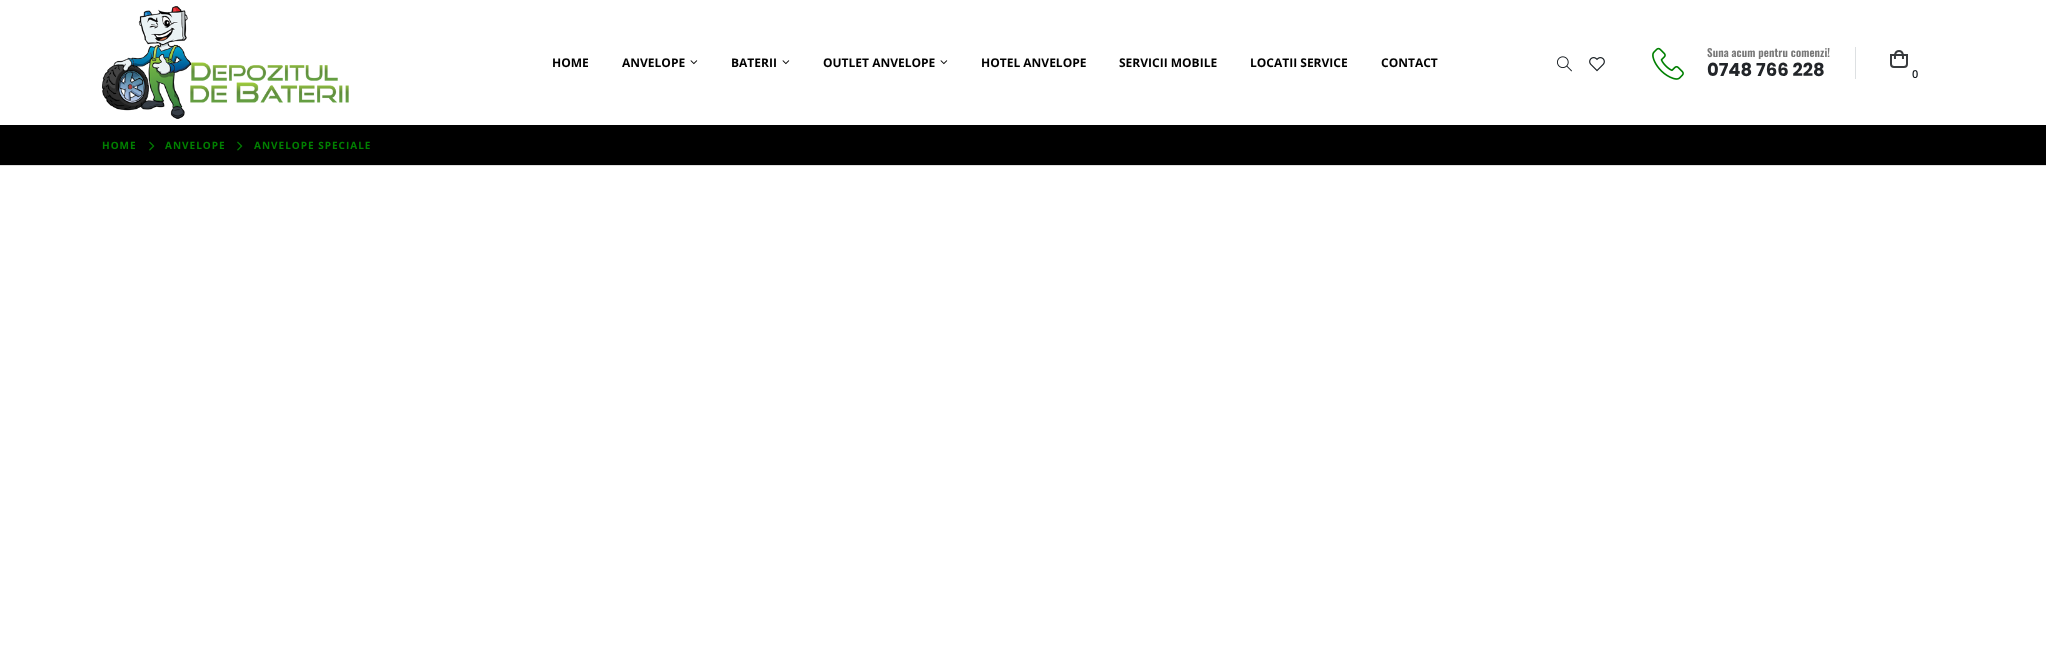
async function draw(canvas) {
  canvas.width = 2046;
  canvas.height = 648;
  const ctx = canvas.getContext('2d');
  ctx.miterLimit = 4;
  ctx.fontKerning = 'normal';
  function label(s, x, y, font, color) {
    ctx.font = font;
    ctx.fillStyle = color;
    ctx.fillText(s, x, y);
  }
  function rect(x, y, w, h, color) {
    ctx.fillStyle = color;
    ctx.fillRect(x, y, w, h);
  }
  async function image(src, x, y, w, h) {
    const img = new Image();
    img.src = src;
    await img.decode();
    ctx.drawImage(img, x, y, w, h);
  }
  let path;

  rect(0, 0, 2046, 648, '#fff');
  await image('assets/img1.png', 102, 6, 247, 113);
  label('HOME', 552, 67, 'bold 12px Open Sans', '#000');
  label('ANVELOPE', 622, 67, 'bold 12px Open Sans', '#000');
  await image('assets/img2.png', 690, 60, 8, 5);
  label('BATERII', 731, 67, 'bold 12px Open Sans', '#000');
  await image('assets/img2.png', 782, 60, 8, 5);
  label('OUTLET ANVELOPE', 823, 67, 'bold 12px Open Sans', '#000');
  await image('assets/img2.png', 940, 60, 8, 5);
  label('HOTEL ANVELOPE', 981, 67, 'bold 12px Open Sans', '#000');
  label('SERVICII MOBILE', 1119, 67, 'bold 12px Open Sans', '#000');
  label('LOCATII SERVICE', 1250, 67, 'bold 12px Open Sans', '#000');
  label('CONTACT', 1381, 67, 'bold 12px Open Sans', '#000');
  await image('assets/img3.png', 1557, 56, 15, 16);
  await image('assets/img4.png', 1589, 57, 16, 15);
  rect(1855, 47, 1, 32, '#dde0e2');
  await image('assets/img5.png', 1652, 47, 32, 33);
  ctx.letterSpacing = '0.1px';
  label('Suna acum pentru comenzi!', 1707, 57, '600 11px Oswald', '#777');
  ctx.letterSpacing = '0px';
  label('0748 766 228', 1707, 76, 'bold 18px Poppins', '#222529');
  ctx.beginPath();
  ctx.roundRect(1891, 55, 16, 12, [0, 0, 3, 3]);
  ctx.strokeStyle = '#383b3e';
  ctx.lineWidth = 2;
  ctx.stroke();
  ctx.fillStyle = '#383b3e';
  path = new Path2D('M1899 50C1904.5 50 1904 55.5 1904 59H1894C1894 55.5 1893.5 50 1899 50ZM1899 52C1902.5 52 1902 56.5 1902 59H1896C1896 56.5 1895.5 52 1899 52Z');
  ctx.fill(path, 'evenodd');
  label('0', 1912, 78, '600 11px Open Sans', '#141a1f');
  rect(0, 125, 2046, 40, '#000');
  rect(0, 165, 2046, 1, '#dfdfdf');
  ctx.letterSpacing = '1px';
  label('HOME', 102, 149, 'bold 10px Open Sans', '#008001');
  await image('assets/img6.png', 149, 141, 6, 10);
  label('ANVELOPE', 165, 149, 'bold 10px Open Sans', '#008001');
  await image('assets/img6.png', 237, 141, 6, 10);
  label('ANVELOPE SPECIALE', 254, 149, 'bold 10px Open Sans', '#008001');
}

draw(document.querySelector('canvas'));
